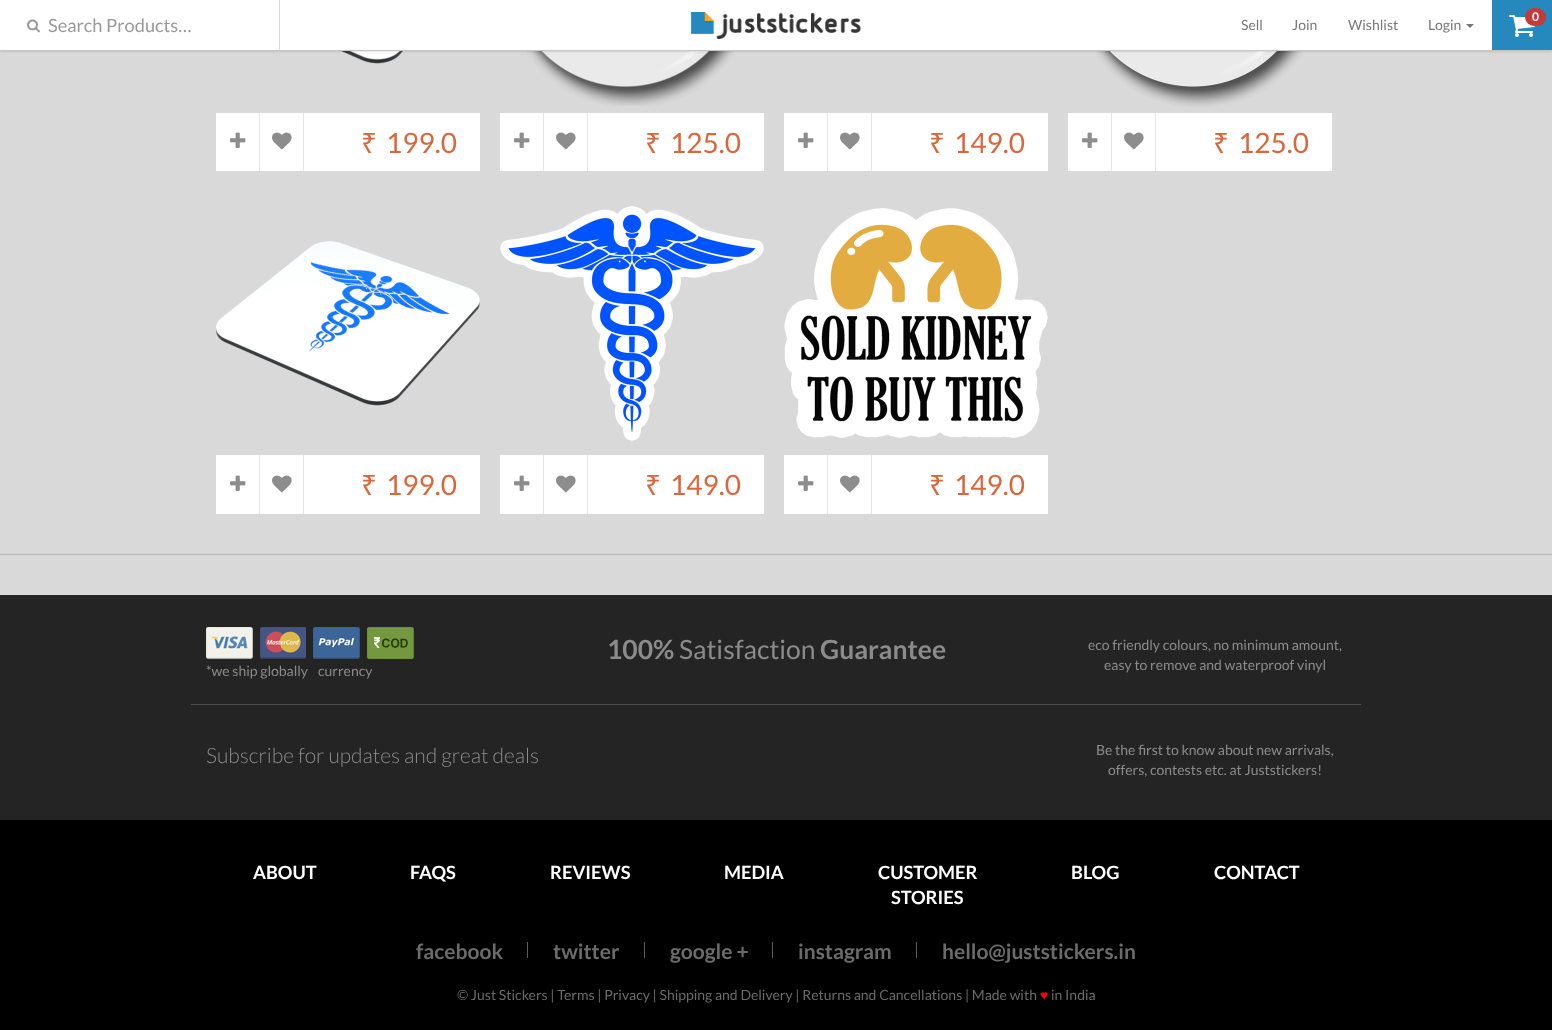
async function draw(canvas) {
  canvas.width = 1552;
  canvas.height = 1030;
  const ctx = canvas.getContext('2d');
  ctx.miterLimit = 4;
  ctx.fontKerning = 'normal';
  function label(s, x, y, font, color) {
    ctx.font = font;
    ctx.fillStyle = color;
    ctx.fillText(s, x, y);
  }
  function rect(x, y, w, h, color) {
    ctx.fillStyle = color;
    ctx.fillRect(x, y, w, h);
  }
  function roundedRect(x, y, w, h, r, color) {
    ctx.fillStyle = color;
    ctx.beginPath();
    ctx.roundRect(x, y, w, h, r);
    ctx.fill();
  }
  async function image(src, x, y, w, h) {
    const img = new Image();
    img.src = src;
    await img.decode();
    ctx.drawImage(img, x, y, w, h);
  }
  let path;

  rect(0, 0, 1552, 1030, '#d9d9d9');
  await image('assets/img6.png', 340, 51, 64, 13);
  await image('assets/img7.png', 527, 51, 207, 55);
  await image('assets/img8.png', 1096, 51, 206, 56);
  ctx.fillStyle = '#0000001a';
  ctx.filter = 'blur(1px)';
  ctx.beginPath();
  ctx.rect(0, 1, 1552, 51);
  ctx.fill();
  ctx.filter = 'none';
  rect(0, 0, 1492, 50, '#fff');
  rect(0, 50, 1552, 1, '#c5c5c5');
  await image('assets/img1.png', 691, 12, 170, 27);
  rect(1492, 0, 60, 50, '#2589bd');
  await image('assets/img2.png', 1509, 15, 26, 22);
  roundedRect(1525, 8, 21, 18, 9, '#c43939');
  label('0', 1532, 21, 'bold 12px Lato', '#fff');
  rect(279, 0, 1, 50, '#dadada');
  await image('assets/img3.png', 27, 19, 13, 14);
  label('Search Products…', 48, 32, '18.25px Lato', '#999');
  label('Sell', 1241, 30, '14px Lato', '#777');
  label('Join', 1292, 30, '14px Lato', '#777');
  label('Wishlist', 1348, 30, '14px Lato', '#777');
  label('Login', 1428, 30, '14px Lato', '#777');
  path = new Path2D('M1466 24H1474L1470 28Z');
  ctx.fill(path);
  rect(216, 113, 264, 58, '#fff');
  rect(259, 113, 1, 58, '#e7e7e7');
  await image('assets/img4.png', 230, 132, 16, 16);
  rect(303, 113, 1, 58, '#e7e7e7');
  await image('assets/img5.png', 272, 132, 20, 18);
  label('₹', 361, 153, '28px Noto Sans', '#d9673b');
  label('199.0', 386, 153, '28px Lato', '#d9673b');
  rect(500, 113, 264, 58, '#fff');
  rect(543, 113, 1, 58, '#e7e7e7');
  await image('assets/img4.png', 514, 132, 16, 16);
  rect(587, 113, 1, 58, '#e7e7e7');
  await image('assets/img5.png', 556, 132, 20, 18);
  label('₹', 645, 153, '28px Noto Sans', '#d9673b');
  label('125.0', 670, 153, '28px Lato', '#d9673b');
  rect(784, 113, 264, 58, '#fff');
  rect(827, 113, 1, 58, '#e7e7e7');
  await image('assets/img4.png', 798, 132, 16, 16);
  rect(871, 113, 1, 58, '#e7e7e7');
  await image('assets/img5.png', 840, 132, 20, 18);
  label('₹', 929, 153, '28px Noto Sans', '#d9673b');
  label('149.0', 954, 153, '28px Lato', '#d9673b');
  rect(1068, 113, 264, 58, '#fff');
  rect(1111, 113, 1, 58, '#e7e7e7');
  await image('assets/img4.png', 1082, 132, 16, 16);
  rect(1155, 113, 1, 58, '#e7e7e7');
  await image('assets/img5.png', 1124, 132, 20, 18);
  label('₹', 1213, 153, '28px Noto Sans', '#d9673b');
  label('125.0', 1238, 153, '28px Lato', '#d9673b');
  rect(216, 455, 264, 59, '#fff');
  rect(259, 455, 1, 59, '#e7e7e7');
  await image('assets/img4.png', 230, 475, 16, 16);
  rect(303, 455, 1, 59, '#e7e7e7');
  await image('assets/img5.png', 272, 475, 20, 18);
  await image('assets/img9.png', 216, 241, 264, 165);
  label('₹', 361, 495, '28px Noto Sans', '#d9673b');
  label('199.0', 386, 495, '28px Lato', '#d9673b');
  rect(500, 455, 264, 59, '#fff');
  rect(543, 455, 1, 59, '#e7e7e7');
  await image('assets/img4.png', 514, 475, 16, 16);
  rect(587, 455, 1, 59, '#e7e7e7');
  await image('assets/img5.png', 556, 475, 20, 18);
  await image('assets/img10.png', 500, 206, 264, 235);
  label('₹', 645, 495, '28px Noto Sans', '#d9673b');
  label('149.0', 670, 495, '28px Lato', '#d9673b');
  rect(784, 455, 264, 59, '#fff');
  rect(827, 455, 1, 59, '#e7e7e7');
  await image('assets/img4.png', 798, 475, 16, 16);
  rect(871, 455, 1, 59, '#e7e7e7');
  await image('assets/img5.png', 840, 475, 20, 18);
  await image('assets/img11.png', 784, 208, 264, 230);
  label('₹', 929, 495, '28px Noto Sans', '#d9673b');
  label('149.0', 954, 495, '28px Lato', '#d9673b');
  rect(0, 554, 1552, 1, '#b6b6b6');
  rect(0, 820, 1552, 210, '#000');
  rect(0, 595, 1552, 225, '#242424');
  rect(191, 704, 1170, 1, '#4d4d4d');
  await image('assets/img12.png', 206, 627, 208, 32);
  label('*we ship globally', 206, 676, '14px Lato', '#8b8b8b');
  label('currency', 318, 676, '14px Lato', '#8b8b8b');
  label('100%', 607, 659, 'bold 26.5px Lato', '#8b8b8b');
  label('Satisfaction', 679, 659, '26.5px Lato', '#8b8b8b');
  label('Guarantee', 820, 659, 'bold 26.5px Lato', '#8b8b8b');
  label('eco friendly colours, no minimum amount,', 1088, 650, '14px Lato', '#8b8b8b');
  label('easy to remove and waterproof vinyl', 1104, 670, '14px Lato', '#8b8b8b');
  label('Subscribe for updates and great deals', 206, 763, '300 21px Lato', '#8b8b8b');
  label('Be the first to know about new arrivals,', 1096, 755, '14px Lato', '#8b8b8b');
  label('offers, contests etc. at Juststickers!', 1108, 775, '14px Lato', '#8b8b8b');
  label('ABOUT', 253, 879, 'bold 18.25px Lato', '#fff');
  label('FAQS', 410, 879, 'bold 18.25px Lato', '#fff');
  label('REVIEWS', 550, 879, 'bold 18.25px Lato', '#fff');
  label('MEDIA', 724, 879, 'bold 18.25px Lato', '#fff');
  label('CUSTOMER', 878, 879, 'bold 18.25px Lato', '#fff');
  label('STORIES', 891, 904, 'bold 18.25px Lato', '#fff');
  label('BLOG', 1071, 879, 'bold 18.25px Lato', '#fff');
  label('CONTACT', 1214, 879, 'bold 18.25px Lato', '#fff');
  label('facebook', 416, 959, 'bold 21px Lato', '#6b6b6b');
  rect(527, 942, 1, 16, '#5c5c5c');
  label('twitter', 553, 959, 'bold 21px Lato', '#6b6b6b');
  rect(644, 942, 1, 16, '#5c5c5c');
  label('google +', 670, 959, 'bold 21px Lato', '#6b6b6b');
  rect(772, 942, 1, 16, '#5c5c5c');
  label('instagram', 798, 959, 'bold 21px Lato', '#6b6b6b');
  rect(916, 942, 1, 16, '#5c5c5c');
  label('hello@juststickers.in', 942, 959, 'bold 21px Lato', '#6b6b6b');
  label('© Just Stickers | Terms | Privacy | Shipping and Delivery | Returns and Cancellations | Made with', 457, 1000, '14px Lato', '#6b6b6b');
  label('♥', 1040, 1000, '14px Liberation Sans', '#f00');
  label('in India', 1051, 1000, '14px Lato', '#6b6b6b');
}

draw(document.querySelector('canvas'));
